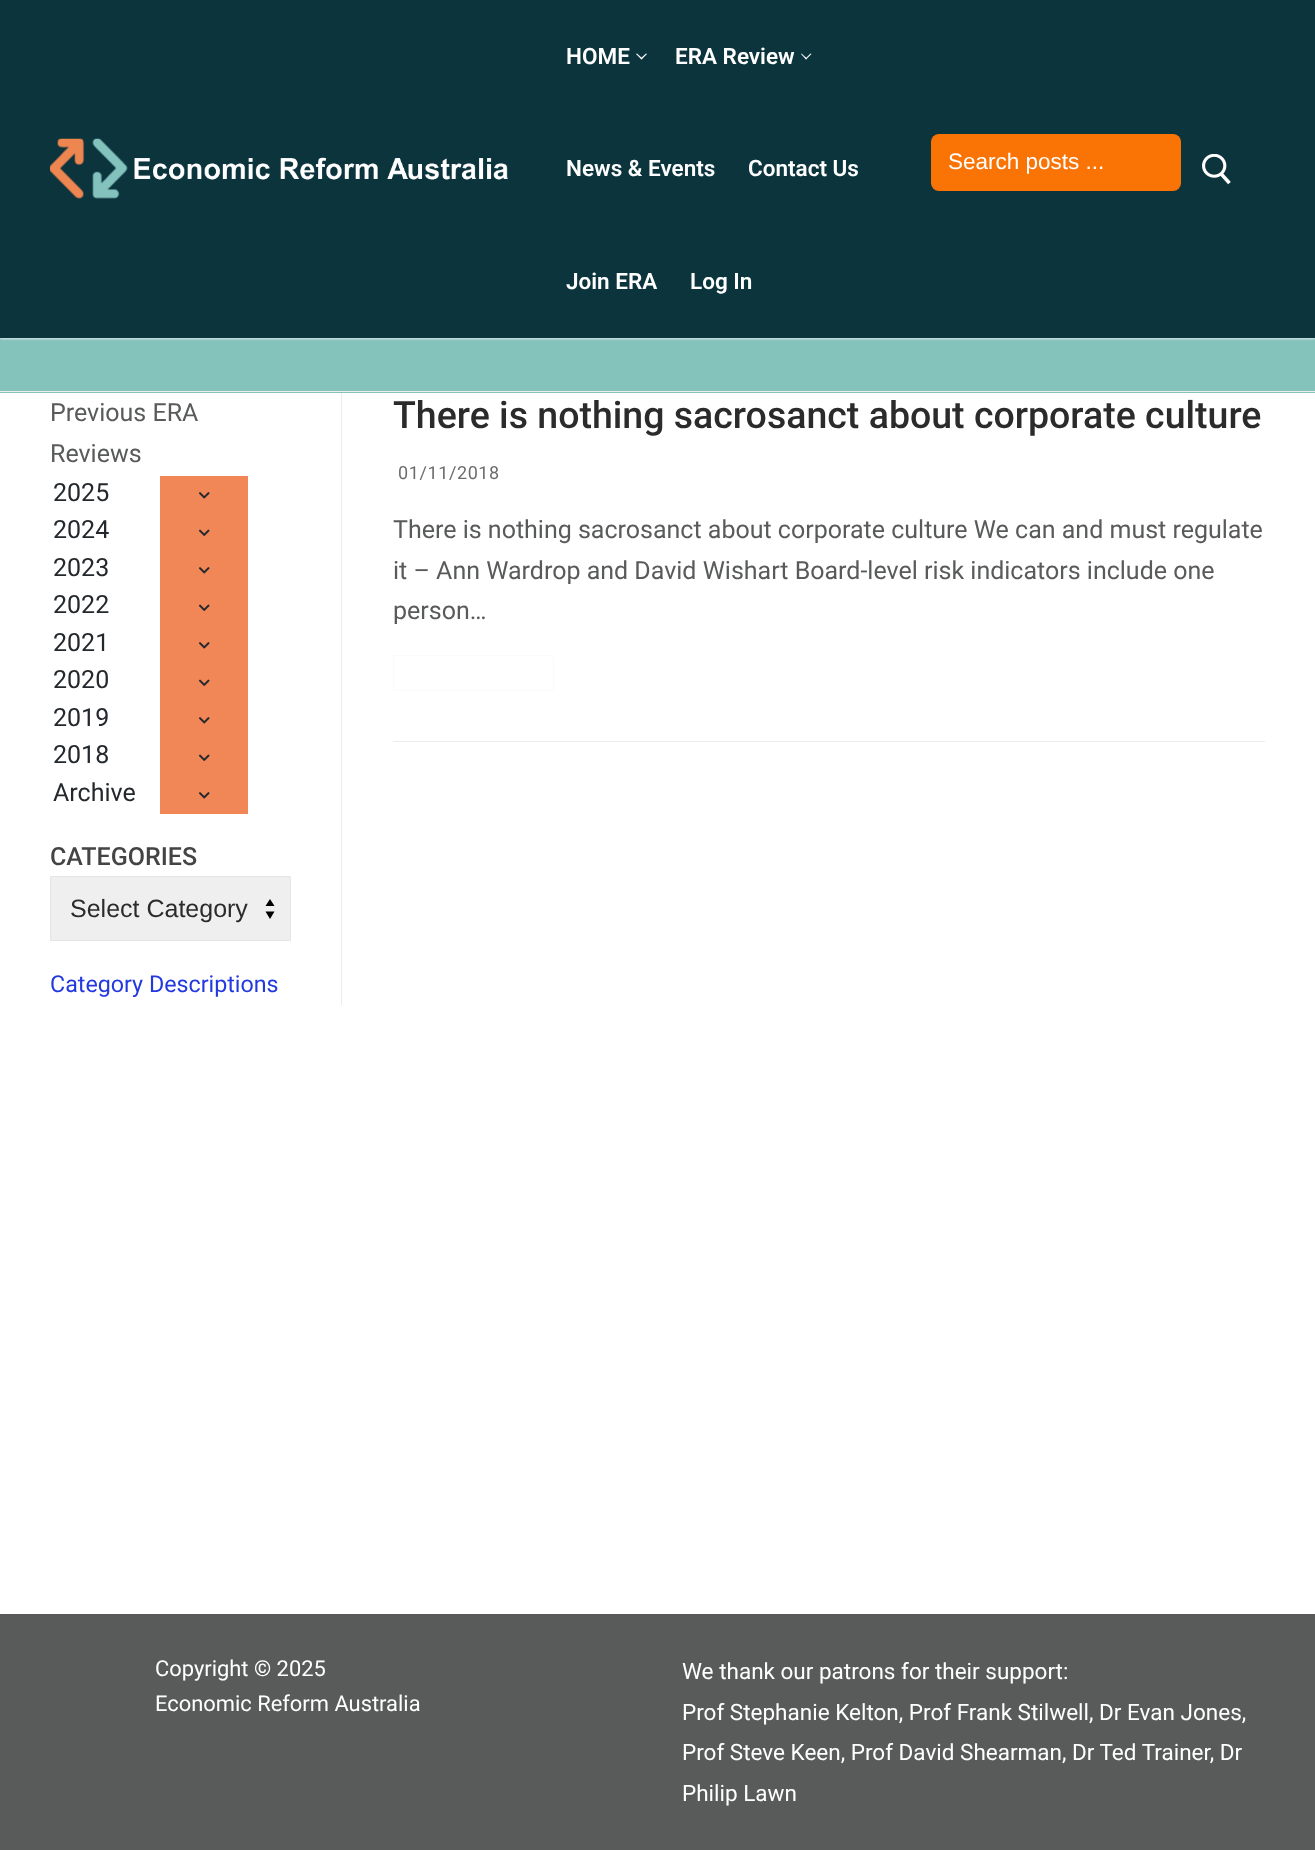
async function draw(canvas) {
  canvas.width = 1315;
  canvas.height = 1850;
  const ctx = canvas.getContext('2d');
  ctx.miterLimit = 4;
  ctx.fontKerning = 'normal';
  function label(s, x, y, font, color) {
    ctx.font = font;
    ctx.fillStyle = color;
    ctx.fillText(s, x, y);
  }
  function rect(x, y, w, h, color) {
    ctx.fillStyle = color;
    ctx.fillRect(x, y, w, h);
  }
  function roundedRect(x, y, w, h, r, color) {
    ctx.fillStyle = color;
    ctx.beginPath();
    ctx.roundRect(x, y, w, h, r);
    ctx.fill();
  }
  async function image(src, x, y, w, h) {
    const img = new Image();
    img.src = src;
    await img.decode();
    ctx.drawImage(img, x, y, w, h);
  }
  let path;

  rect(0, 0, 1315, 1850, '#fff');
  rect(0, 338, 1315, 55, '#84c2bc');
  ctx.fillStyle = '#e1e5ea';
  ctx.filter = 'blur(1px)';
  ctx.beginPath();
  ctx.rect(0, 1, 1315, 338);
  ctx.fill();
  ctx.filter = 'none';
  rect(0, 0, 1315, 338, '#0c343d');
  await image('assets/img1.png', 50, 138, 458, 61);
  label('HOME', 566, 64, '600 22.5px Roboto', '#fff');
  path = new Path2D('M641.5 59.5L636 54L637 53.5L642.5 58.5Z');
  ctx.fill(path);
  path = new Path2D('M641.5 59.5L640.5 58.5L646 53.5L647 54Z');
  ctx.fill(path);
  label('ERA Review', 675, 64, '600 22.5px Roboto', '#fff');
  path = new Path2D('M806 59.5L801 54L801.5 53.5L807 58.5Z');
  ctx.fill(path);
  path = new Path2D('M806 59.5L805.5 58.5L810.5 53.5L811.5 54Z');
  ctx.fill(path);
  label('News & Events', 566, 176, '600 22.5px Roboto', '#fff');
  label('Contact Us', 748, 176, '600 22.5px Roboto', '#fff');
  label('Join ERA', 566, 289, '600 22.5px Roboto', '#fff');
  label('Log In', 690, 289, '600 22.5px Roboto', '#fff');
  roundedRect(931, 134, 250, 57, 8, '#fa7305');
  label('Search posts ...', 948, 169, '22.5px Liberation Sans', '#fff');
  await image('assets/img2.png', 1202, 154, 29, 31);
  rect(0, 391, 1315, 1, '#eaecee');
  label('Previous ERA', 50, 421, '25px Roboto', '#595a5a');
  label('Reviews', 50, 462, '25px Roboto', '#595a5a');
  label('2025', 53, 501, '25px Roboto', '#23282d');
  rect(160, 476, 88, 338, '#f18756');
  await image('assets/img3.png', 198, 492, 12, 7);
  label('2024', 53, 538, '25px Roboto', '#23282d');
  await image('assets/img4.png', 198, 529, 12, 7);
  label('2023', 53, 576, '25px Roboto', '#23282d');
  await image('assets/img3.png', 198, 567, 12, 7);
  label('2022', 53, 613, '25px Roboto', '#23282d');
  await image('assets/img4.png', 198, 604, 12, 7);
  label('2021', 53, 651, '25px Roboto', '#23282d');
  await image('assets/img3.png', 198, 642, 12, 7);
  label('2020', 53, 688, '25px Roboto', '#23282d');
  await image('assets/img4.png', 198, 679, 12, 7);
  label('2019', 53, 726, '25px Roboto', '#23282d');
  await image('assets/img3.png', 198, 717, 12, 7);
  label('2018', 53, 763, '25px Roboto', '#23282d');
  await image('assets/img4.png', 198, 754, 12, 7);
  label('Archive', 53, 801, '25px Roboto', '#23282d');
  await image('assets/img3.png', 198, 792, 12, 7);
  label('CATEGORIES', 50, 865, '500 25px Roboto', '#444');
  roundedRect(50, 876, 241, 65, 1, '#efefef');
  ctx.fillStyle = '#000';
  path = new Path2D('M270 899L265.5 906H274.5ZM270 919L274.5 911.5H265.5Z');
  ctx.fill(path);
  ctx.beginPath();
  ctx.roundRect(50.5, 876.5, 240, 64, 0.5);
  ctx.strokeStyle = '#e5e5e5';
  ctx.stroke();
  label('Select Category', 70, 917, '25px Liberation Sans', '#2b2b2b');
  label('Category Descriptions', 50, 992, '23.25px Roboto', '#2339e0');
  rect(341, 393, 1, 612, '#eaecee');
  rect(393, 741, 872, 1, '#eaecee');
  label('There is nothing sacrosanct about corporate culture', 393, 428, '500 37.5px Roboto', '#2b2b2b');
  ctx.letterSpacing = '0.6px';
  label('01/11/2018', 398, 479, '18px Roboto', '#6d6d6d');
  ctx.letterSpacing = '0px';
  label('There is nothing sacrosanct about corporate culture We can and must regulate', 393, 538, '25px Roboto', '#595a5a');
  label('it – Ann Wardrop and David Wishart Board-level risk indicators include one', 393, 579, '25px Roboto', '#595a5a');
  label('person…', 393, 619, '25px Roboto', '#595a5a');
  ctx.beginPath();
  ctx.roundRect(393.5, 655.5, 160, 35, 2);
  ctx.strokeStyle = '#fafafa';
  ctx.stroke();
  rect(0, 1614, 1315, 236, '#595a5a');
  label('Copyright © 2025', 155, 1676, '21.9px Roboto', '#fff');
  label('Economic Reform Australia', 155, 1711, '21.9px Roboto', '#fff');
  label('We thank our patrons for their support:', 682, 1679, '22.5px Roboto', '#fff');
  label('Prof Stephanie Kelton, Prof Frank Stilwell, Dr Evan Jones,', 682, 1720, '22.5px Roboto', '#fff');
  label('Prof Steve Keen, Prof David Shearman, Dr Ted Trainer, Dr', 682, 1760, '22.5px Roboto', '#fff');
  label('Philip Lawn', 682, 1801, '22.5px Roboto', '#fff');
}

draw(document.querySelector('canvas'));
